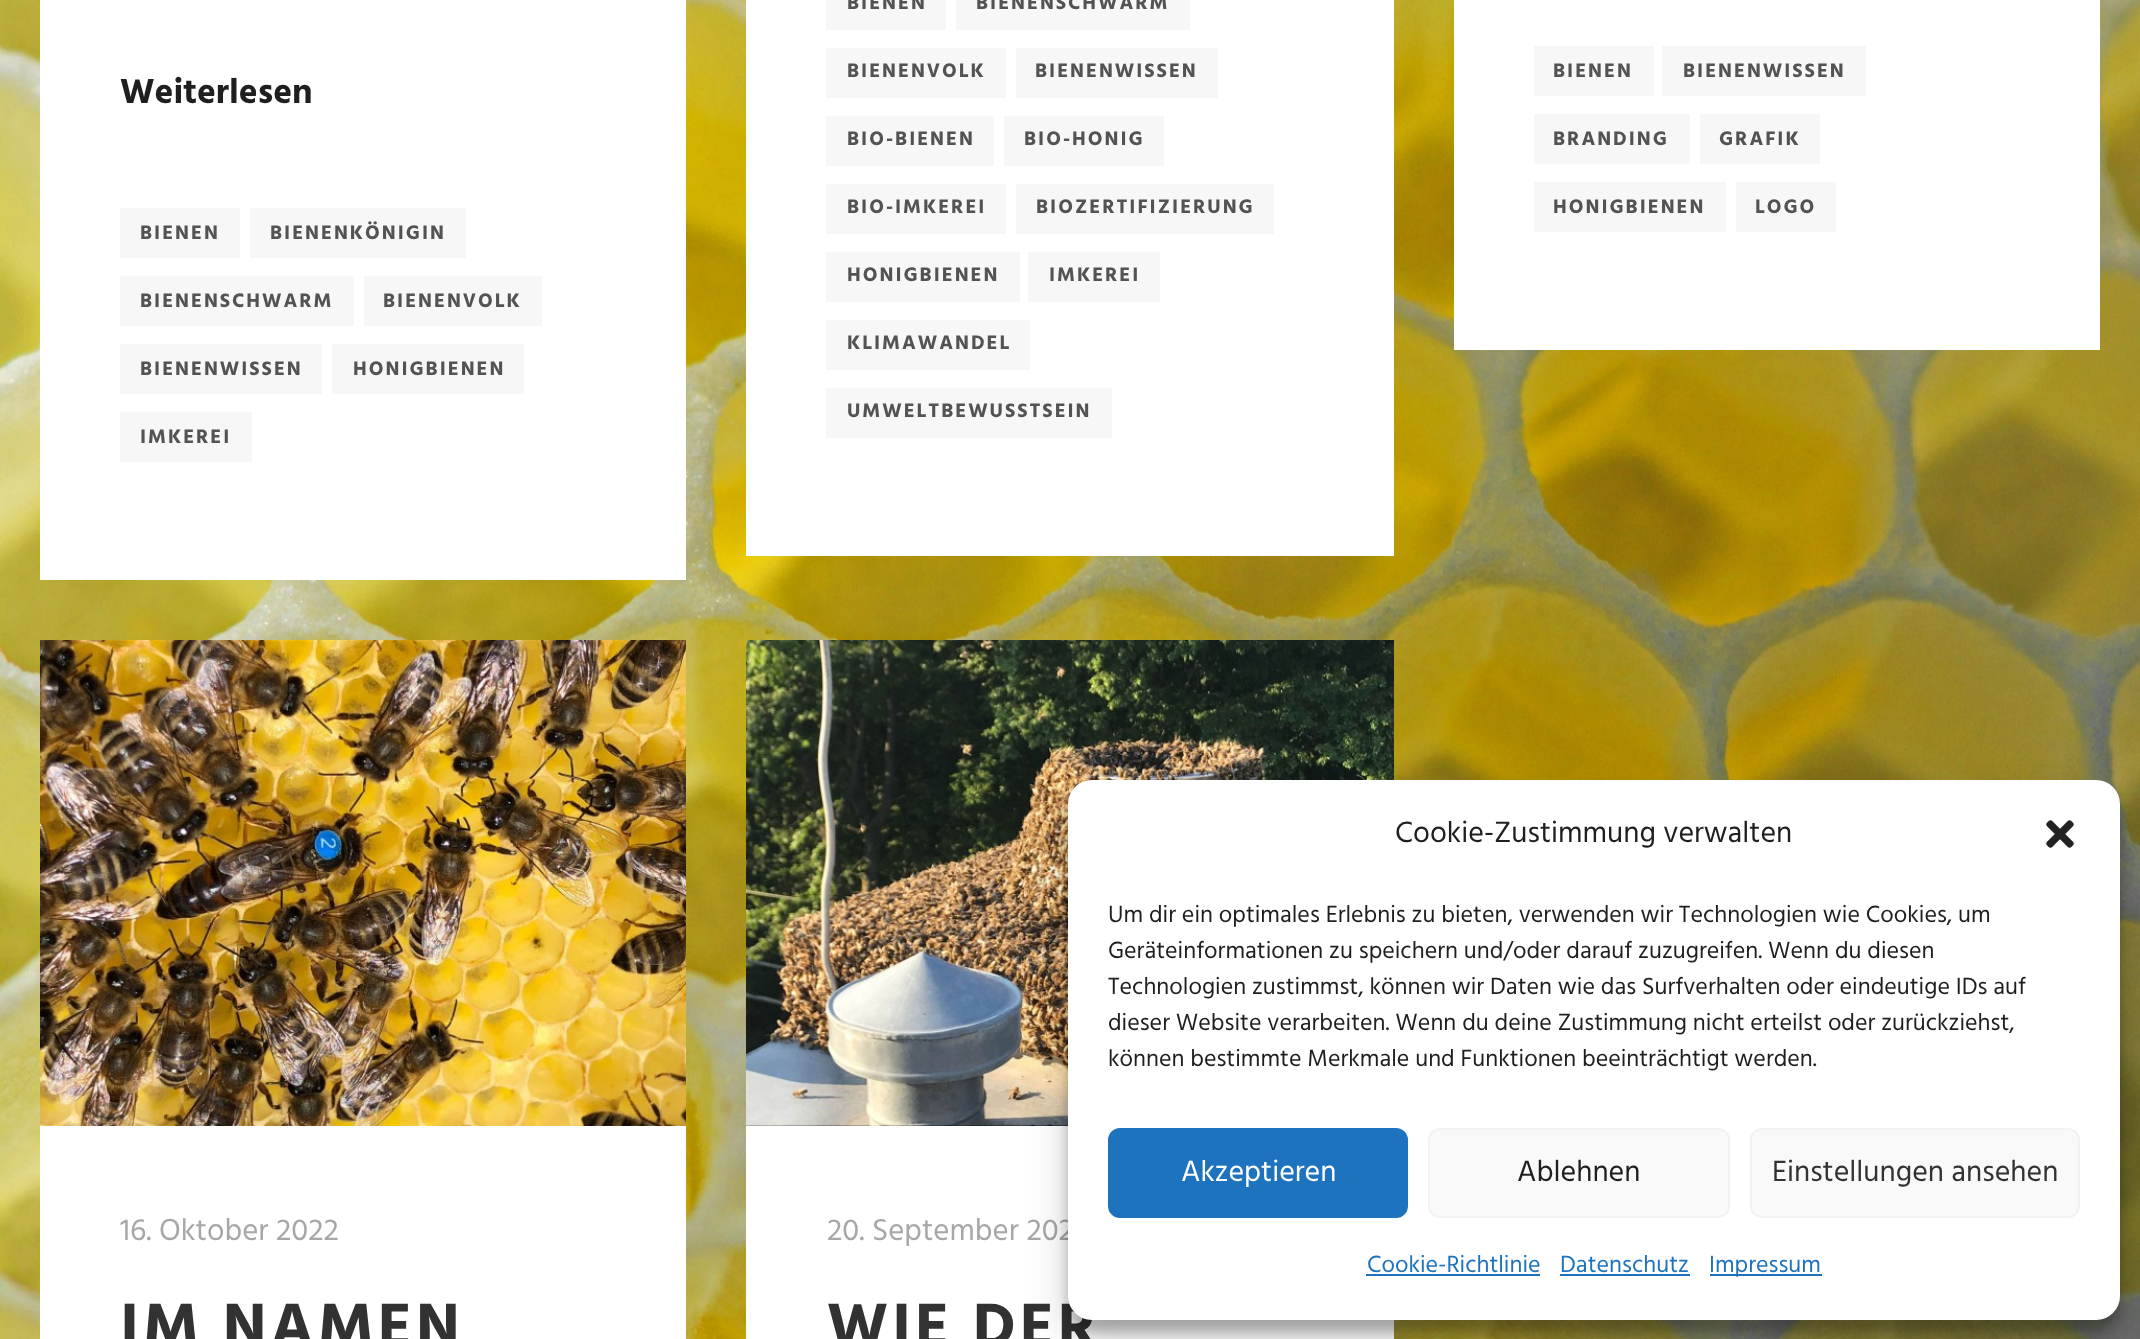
async function draw(canvas) {
  canvas.width = 2140;
  canvas.height = 1339;
  const ctx = canvas.getContext('2d');
  ctx.miterLimit = 4;
  ctx.fontKerning = 'normal';
  function label(s, x, y, font, color) {
    ctx.font = font;
    ctx.fillStyle = color;
    ctx.fillText(s, x, y);
  }
  function rect(x, y, w, h, color) {
    ctx.fillStyle = color;
    ctx.fillRect(x, y, w, h);
  }
  function roundedRect(x, y, w, h, r, color) {
    ctx.fillStyle = color;
    ctx.beginPath();
    ctx.roundRect(x, y, w, h, r);
    ctx.fill();
  }
  async function image(src, x, y, w, h) {
    const img = new Image();
    img.src = src;
    await img.decode();
    ctx.drawImage(img, x, y, w, h);
  }

  rect(0, 0, 2140, 1339, '#fff');
  await image('assets/img1.png', 0, 0, 2140, 1339);
  rect(40, 0, 646, 580, '#fff');
  label('Weiterlesen', 120, 103, 'bold 35.5px Hind', '#1f1f1f');
  rect(120, 208, 120, 50, '#f7f7f7');
  ctx.letterSpacing = '2px';
  label('BIENEN', 140, 239, 'bold 20px Hind', '#535353');
  rect(250, 208, 216, 50, '#f7f7f7');
  label('BIENENKÖNIGIN', 270, 239, 'bold 20px Hind', '#535353');
  rect(120, 276, 234, 50, '#f7f7f7');
  label('BIENENSCHWARM', 140, 307, 'bold 20px Hind', '#535353');
  rect(364, 276, 178, 50, '#f7f7f7');
  label('BIENENVOLK', 383, 307, 'bold 20px Hind', '#535353');
  rect(120, 344, 202, 50, '#f7f7f7');
  label('BIENENWISSEN', 140, 375, 'bold 20px Hind', '#535353');
  rect(332, 344, 192, 50, '#f7f7f7');
  label('HONIGBIENEN', 353, 375, 'bold 20px Hind', '#535353');
  rect(120, 412, 132, 50, '#f7f7f7');
  label('IMKEREI', 140, 443, 'bold 20px Hind', '#535353');
  rect(746, 0, 648, 556, '#fff');
  rect(826, 0, 120, 30, '#f7f7f7');
  label('BIENEN', 847, 9, 'bold 20px Hind', '#535353');
  rect(956, 0, 234, 30, '#f7f7f7');
  label('BIENENSCHWARM', 976, 9, 'bold 20px Hind', '#535353');
  rect(826, 48, 180, 50, '#f7f7f7');
  label('BIENENVOLK', 847, 77, 'bold 20px Hind', '#535353');
  rect(1016, 48, 202, 50, '#f7f7f7');
  label('BIENENWISSEN', 1035, 77, 'bold 20px Hind', '#535353');
  rect(826, 116, 168, 50, '#f7f7f7');
  label('BIO-BIENEN', 847, 145, 'bold 20px Hind', '#535353');
  rect(1004, 116, 160, 50, '#f7f7f7');
  label('BIO-HONIG', 1024, 145, 'bold 20px Hind', '#535353');
  rect(826, 184, 180, 50, '#f7f7f7');
  label('BIO-IMKEREI', 847, 213, 'bold 20px Hind', '#535353');
  rect(1016, 184, 258, 50, '#f7f7f7');
  label('BIOZERTIFIZIERUNG', 1036, 213, 'bold 20px Hind', '#535353');
  rect(826, 252, 194, 50, '#f7f7f7');
  label('HONIGBIENEN', 847, 281, 'bold 20px Hind', '#535353');
  rect(1028, 252, 132, 50, '#f7f7f7');
  label('IMKEREI', 1049, 281, 'bold 20px Hind', '#535353');
  rect(826, 320, 204, 50, '#f7f7f7');
  label('KLIMAWANDEL', 847, 349, 'bold 20px Hind', '#535353');
  rect(826, 388, 286, 50, '#f7f7f7');
  label('UMWELTBEWUSSTSEIN', 847, 417, 'bold 20px Hind', '#535353');
  rect(1454, 0, 646, 350, '#fff');
  rect(1534, 46, 120, 50, '#f7f7f7');
  label('BIENEN', 1553, 77, 'bold 20px Hind', '#535353');
  rect(1662, 46, 204, 50, '#f7f7f7');
  label('BIENENWISSEN', 1683, 77, 'bold 20px Hind', '#535353');
  rect(1534, 114, 156, 50, '#f7f7f7');
  label('BRANDING', 1553, 145, 'bold 20px Hind', '#535353');
  rect(1700, 114, 120, 50, '#f7f7f7');
  label('GRAFIK', 1719, 145, 'bold 20px Hind', '#535353');
  rect(1534, 182, 192, 50, '#f7f7f7');
  label('HONIGBIENEN', 1553, 213, 'bold 20px Hind', '#535353');
  rect(1736, 182, 100, 50, '#f7f7f7');
  label('LOGO', 1755, 213, 'bold 20px Hind', '#535353');
  await image('assets/img2.png', 40, 640, 646, 486);
  rect(40, 1126, 646, 213, '#fff');
  ctx.letterSpacing = '0px';
  label('16. Oktober 2022', 120, 1240, '31px Hind', '#a7a7a7');
  ctx.letterSpacing = '4px';
  label('IM NAMEN', 120, 1346, 'bold 62.75px Hind', '#323232');
  await image('assets/img3.png', 746, 640, 648, 486);
  rect(746, 1126, 648, 213, '#fff');
  ctx.letterSpacing = '0px';
  label('20. September 202', 827, 1240, '31px Hind', '#a7a7a7');
  ctx.letterSpacing = '4px';
  label('WIE DER', 827, 1346, 'bold 62.75px Hind', '#323232');
  ctx.fillStyle = '#0000003b';
  ctx.filter = 'blur(6px)';
  ctx.beginPath();
  ctx.roundRect(1068, 792, 1052, 540, 24);
  ctx.fill();
  ctx.filter = 'none';
  ctx.fillStyle = '#00000030';
  ctx.filter = 'blur(20px)';
  ctx.beginPath();
  ctx.roundRect(1068, 800, 1052, 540, 24);
  ctx.fill();
  ctx.filter = 'none';
  roundedRect(1068, 780, 1052, 540, 24, '#fff');
  ctx.letterSpacing = '0px';
  label('Cookie-Zustimmung verwalten', 1395, 842, '30px Hind', '#1f1f1f');
  await image('assets/img4.png', 2046, 820, 28, 28);
  label('Um dir ein optimales Erlebnis zu bieten, verwenden wir Technologien wie Cookies, um', 1108, 922, '24px Hind', '#1f1f1f');
  label('Geräteinformationen zu speichern und/oder darauf zuzugreifen. Wenn du diesen', 1108, 958, '24px Hind', '#1f1f1f');
  label('Technologien zustimmst, können wir Daten wie das Surfverhalten oder eindeutige IDs auf', 1108, 994, '24px Hind', '#1f1f1f');
  label('dieser Website verarbeiten. Wenn du deine Zustimmung nicht erteilst oder zurückziehst,', 1108, 1030, '24px Hind', '#1f1f1f');
  label('können bestimmte Merkmale und Funktionen beeinträchtigt werden.', 1108, 1066, '24px Hind', '#1f1f1f');
  ctx.fillStyle = '#1e73be';
  ctx.beginPath();
  ctx.roundRect(1109, 1129, 298, 88, 11);
  ctx.fill();
  ctx.strokeStyle = '#1e73be';
  ctx.lineWidth = 2;
  ctx.stroke();
  label('Akzeptieren', 1181, 1181, '30px Hind', '#fff');
  ctx.fillStyle = '#f9f9f9';
  ctx.beginPath();
  ctx.roundRect(1429, 1129, 300, 88, 11);
  ctx.fill();
  ctx.strokeStyle = '#f2f2f2';
  ctx.stroke();
  label('Ablehnen', 1517, 1181, '30px Hind', '#1f1f1f');
  ctx.fillStyle = '#f9f9f9';
  ctx.beginPath();
  ctx.roundRect(1751, 1129, 328, 88, 11);
  ctx.fill();
  ctx.stroke();
  label('Einstellungen ansehen', 1772, 1181, '30px Hind', '#323232');
  label('Cookie-Richtlinie', 1367, 1272, '24px Hind', '#1e73be');
  rect(1366, 1274, 174, 2, '#1e73be');
  label('Datenschutz', 1560, 1272, '24px Hind', '#1e73be');
  rect(1560, 1274, 130, 2, '#1e73be');
  rect(1710, 1274, 112, 2, '#1e73be');
  label('Impressum', 1709, 1272, '24px Hind', '#1e73be');
}

draw(document.querySelector('canvas'));
